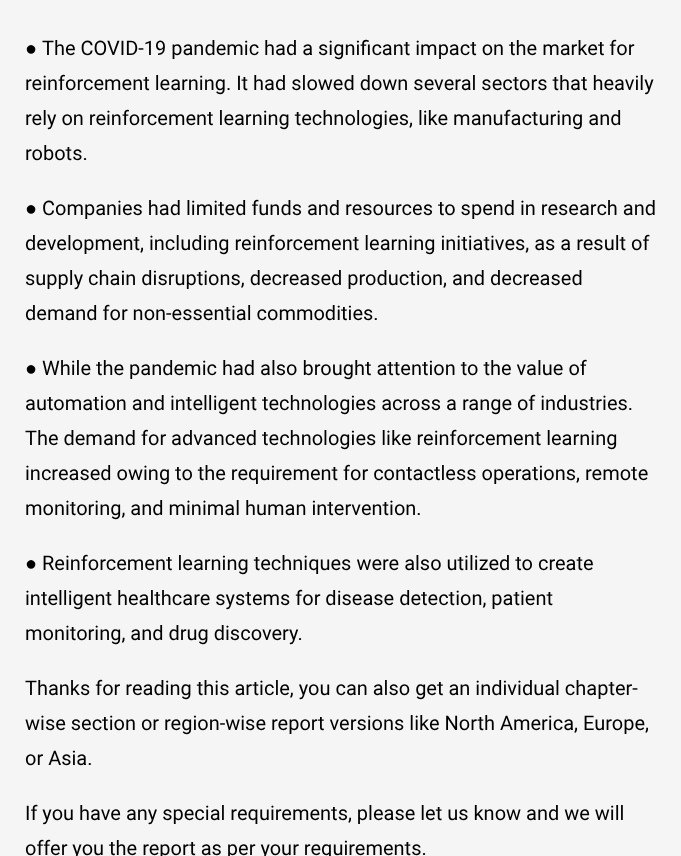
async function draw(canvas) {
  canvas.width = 681;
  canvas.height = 856;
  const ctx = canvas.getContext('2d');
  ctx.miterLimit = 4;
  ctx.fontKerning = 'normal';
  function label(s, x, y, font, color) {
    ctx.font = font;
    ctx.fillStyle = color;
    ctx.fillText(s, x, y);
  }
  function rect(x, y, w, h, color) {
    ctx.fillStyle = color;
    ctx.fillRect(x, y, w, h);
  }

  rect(0, 0, 681, 856, '#f5f5f5');
  label('●', 25, 55, '20px Liberation Sans', '#000');
  label('The COVID-19 pandemic had a significant impact on the market for', 42, 55, '20px Roboto', '#000');
  label('reinforcement learning. It had slowed down several sectors that heavily', 25, 90, '20px Roboto', '#000');
  label('rely on reinforcement learning technologies, like manufacturing and', 25, 125, '20px Roboto', '#000');
  label('robots.', 25, 160, '20px Roboto', '#000');
  label('●', 25, 215, '20px Liberation Sans', '#000');
  label('Companies had limited funds and resources to spend in research and', 42, 215, '20px Roboto', '#000');
  label('development, including reinforcement learning initiatives, as a result of', 25, 250, '20px Roboto', '#000');
  label('supply chain disruptions, decreased production, and decreased', 25, 285, '20px Roboto', '#000');
  label('demand for non-essential commodities.', 25, 320, '20px Roboto', '#000');
  label('●', 25, 375, '20px Liberation Sans', '#000');
  label('While the pandemic had also brought attention to the value of', 42, 375, '20px Roboto', '#000');
  label('automation and intelligent technologies across a range of industries.', 25, 410, '20px Roboto', '#000');
  label('The demand for advanced technologies like reinforcement learning', 25, 445, '20px Roboto', '#000');
  label('increased owing to the requirement for contactless operations, remote', 25, 480, '20px Roboto', '#000');
  label('monitoring, and minimal human intervention.', 25, 515, '20px Roboto', '#000');
  label('●', 25, 570, '20px Liberation Sans', '#000');
  label('Reinforcement learning techniques were also utilized to create', 42, 570, '20px Roboto', '#000');
  label('intelligent healthcare systems for disease detection, patient', 25, 605, '20px Roboto', '#000');
  label('monitoring, and drug discovery.', 25, 640, '20px Roboto', '#000');
  label('Thanks for reading this article, you can also get an individual chapter-', 25, 695, '20px Roboto', '#000');
  label('wise section or region-wise report versions like North America, Europe,', 25, 730, '20px Roboto', '#000');
  label('or Asia.', 25, 765, '20px Roboto', '#000');
  label('If you have any special requirements, please let us know and we will', 25, 820, '20px Roboto', '#000');
  label('offer you the report as per your requirements.', 25, 855, '20px Roboto', '#000');
}

draw(document.querySelector('canvas'));
